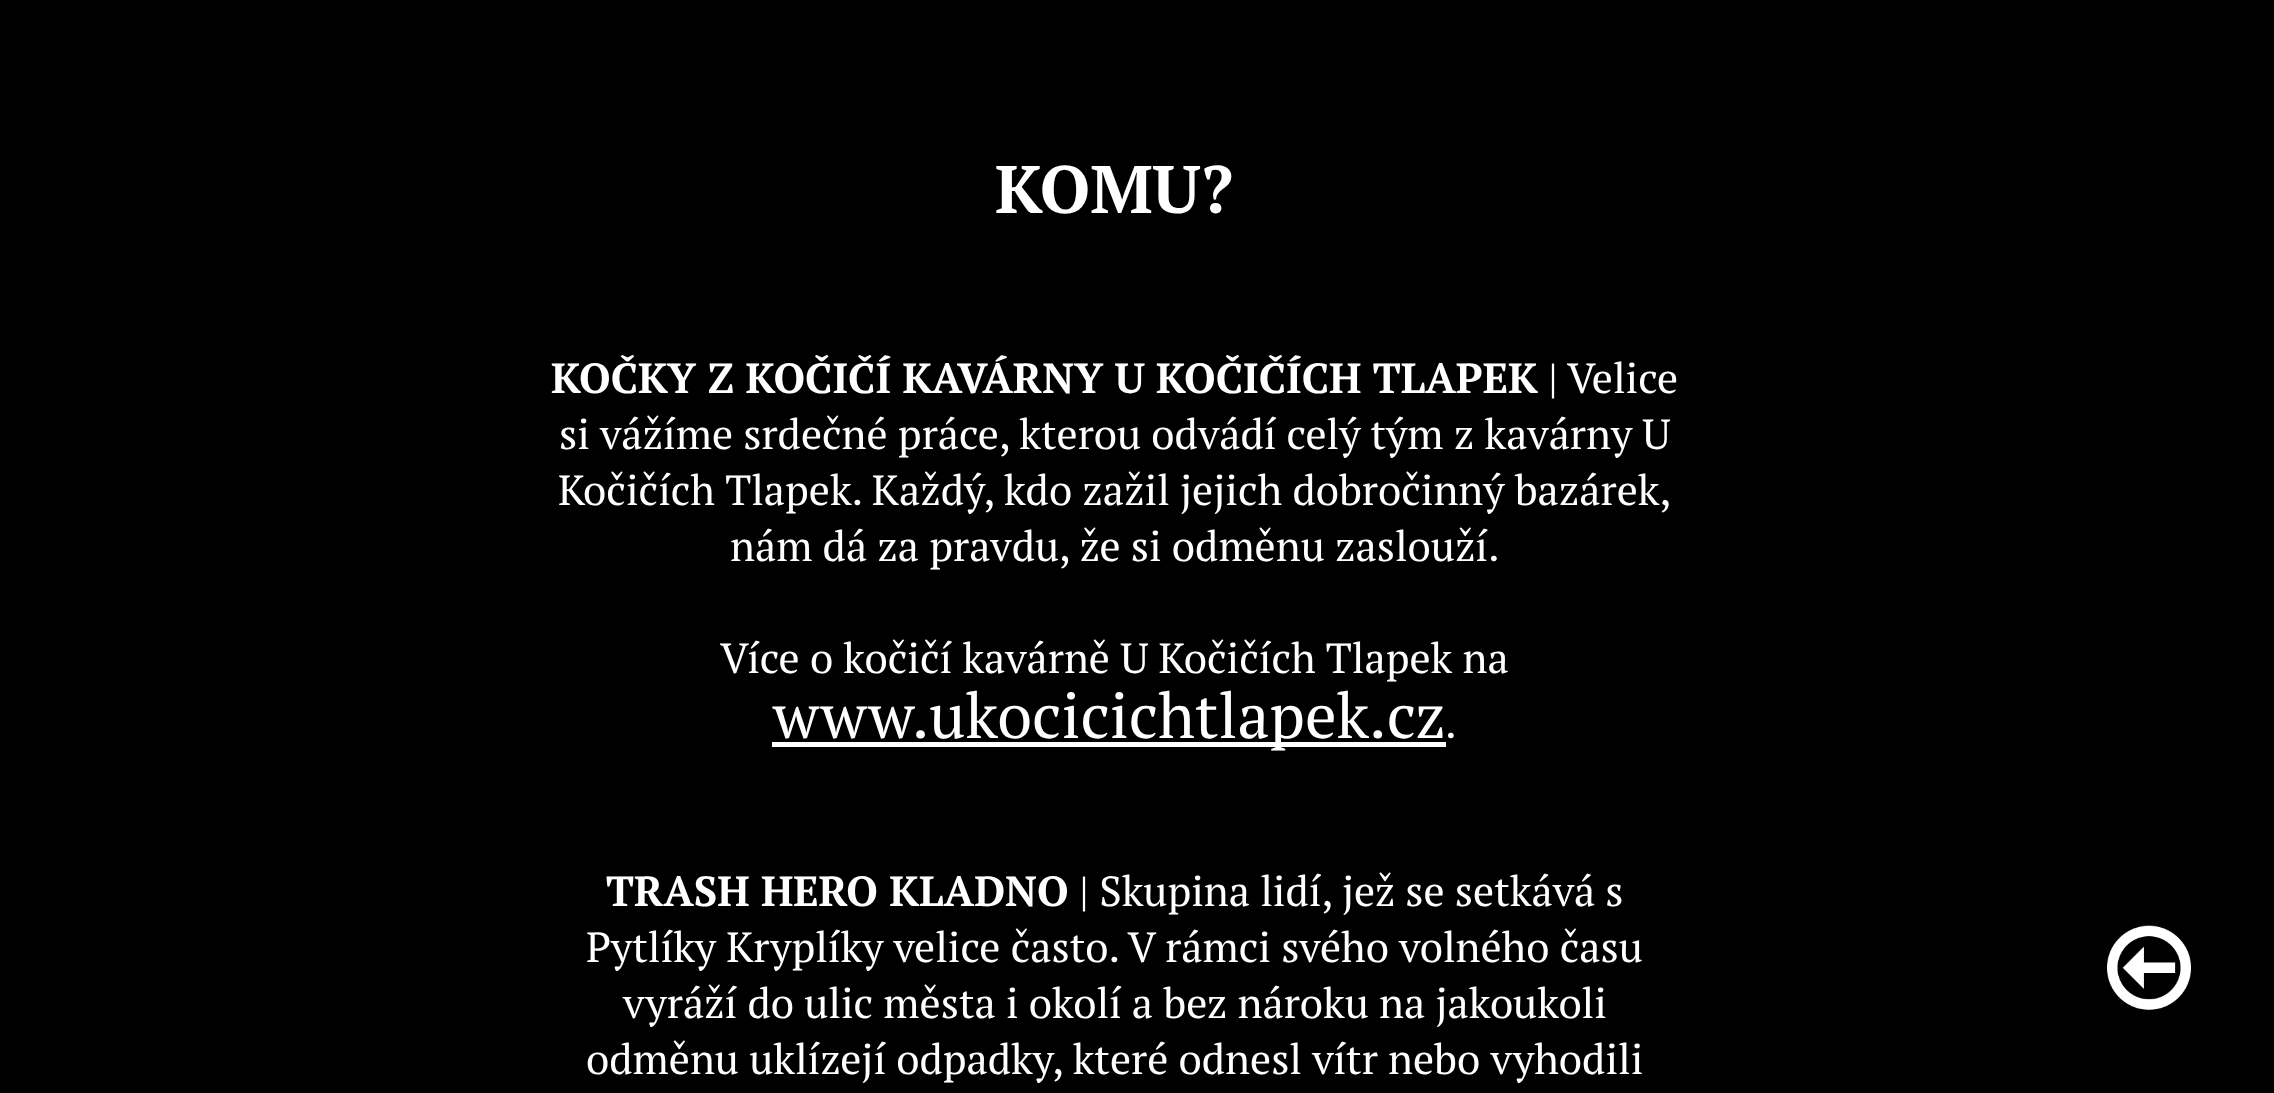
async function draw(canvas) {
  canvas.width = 2274;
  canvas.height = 1093;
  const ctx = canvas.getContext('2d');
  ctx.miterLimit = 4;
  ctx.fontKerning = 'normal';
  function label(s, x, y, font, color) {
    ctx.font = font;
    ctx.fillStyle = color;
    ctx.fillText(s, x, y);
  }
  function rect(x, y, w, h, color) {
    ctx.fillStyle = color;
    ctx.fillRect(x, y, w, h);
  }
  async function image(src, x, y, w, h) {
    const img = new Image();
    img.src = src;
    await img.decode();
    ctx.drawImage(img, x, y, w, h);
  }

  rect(0, 0, 2274, 1093, '#000');
  label('KOMU?', 995, 213, 'bold 67px PT Serif', '#fff');
  label('KOČKY Z KOČIČÍ KAVÁRNY U KOČIČÍCH TLAPEK', 551, 393, 'bold 42px PT Serif', '#fff');
  label('| Velice', 1548, 393, '42px PT Serif', '#fff');
  label('si vážíme srdečné práce, kterou odvádí celý tým z kavárny U', 559, 449, '42px PT Serif', '#fff');
  label('Kočičích Tlapek. Každý, kdo zažil jejich dobročinný bazárek,', 558, 505, '42px PT Serif', '#fff');
  label('nám dá za pravdu, že si odměnu zaslouží.', 730, 561, '42px PT Serif', '#fff');
  label('Více o kočičí kavárně U Kočičích Tlapek na', 720, 673, '42px PT Serif', '#fff');
  rect(772, 742, 674, 5, '#fff');
  label('www.ukocicichtlapek.cz', 773, 738, '63px PT Serif', '#fff');
  label('.', 1445, 738, '42px PT Serif', '#fff');
  label('TRASH HERO KLADNO', 606, 906, 'bold 42px PT Serif', '#fff');
  label('| Skupina lidí, jež se setkává s', 1079, 906, '42px PT Serif', '#fff');
  label('Pytlíky Kryplíky velice často. V rámci svého volného času', 586, 962, '42px PT Serif', '#fff');
  label('vyráží do ulic města i okolí a bez nároku na jakoukoli', 623, 1018, '42px PT Serif', '#fff');
  label('odměnu uklízejí odpadky, které odnesl vítr nebo vyhodili', 586, 1074, '42px PT Serif', '#fff');
  await image('assets/img1.png', 2107, 925, 84, 85);
}

draw(document.querySelector('canvas'));
